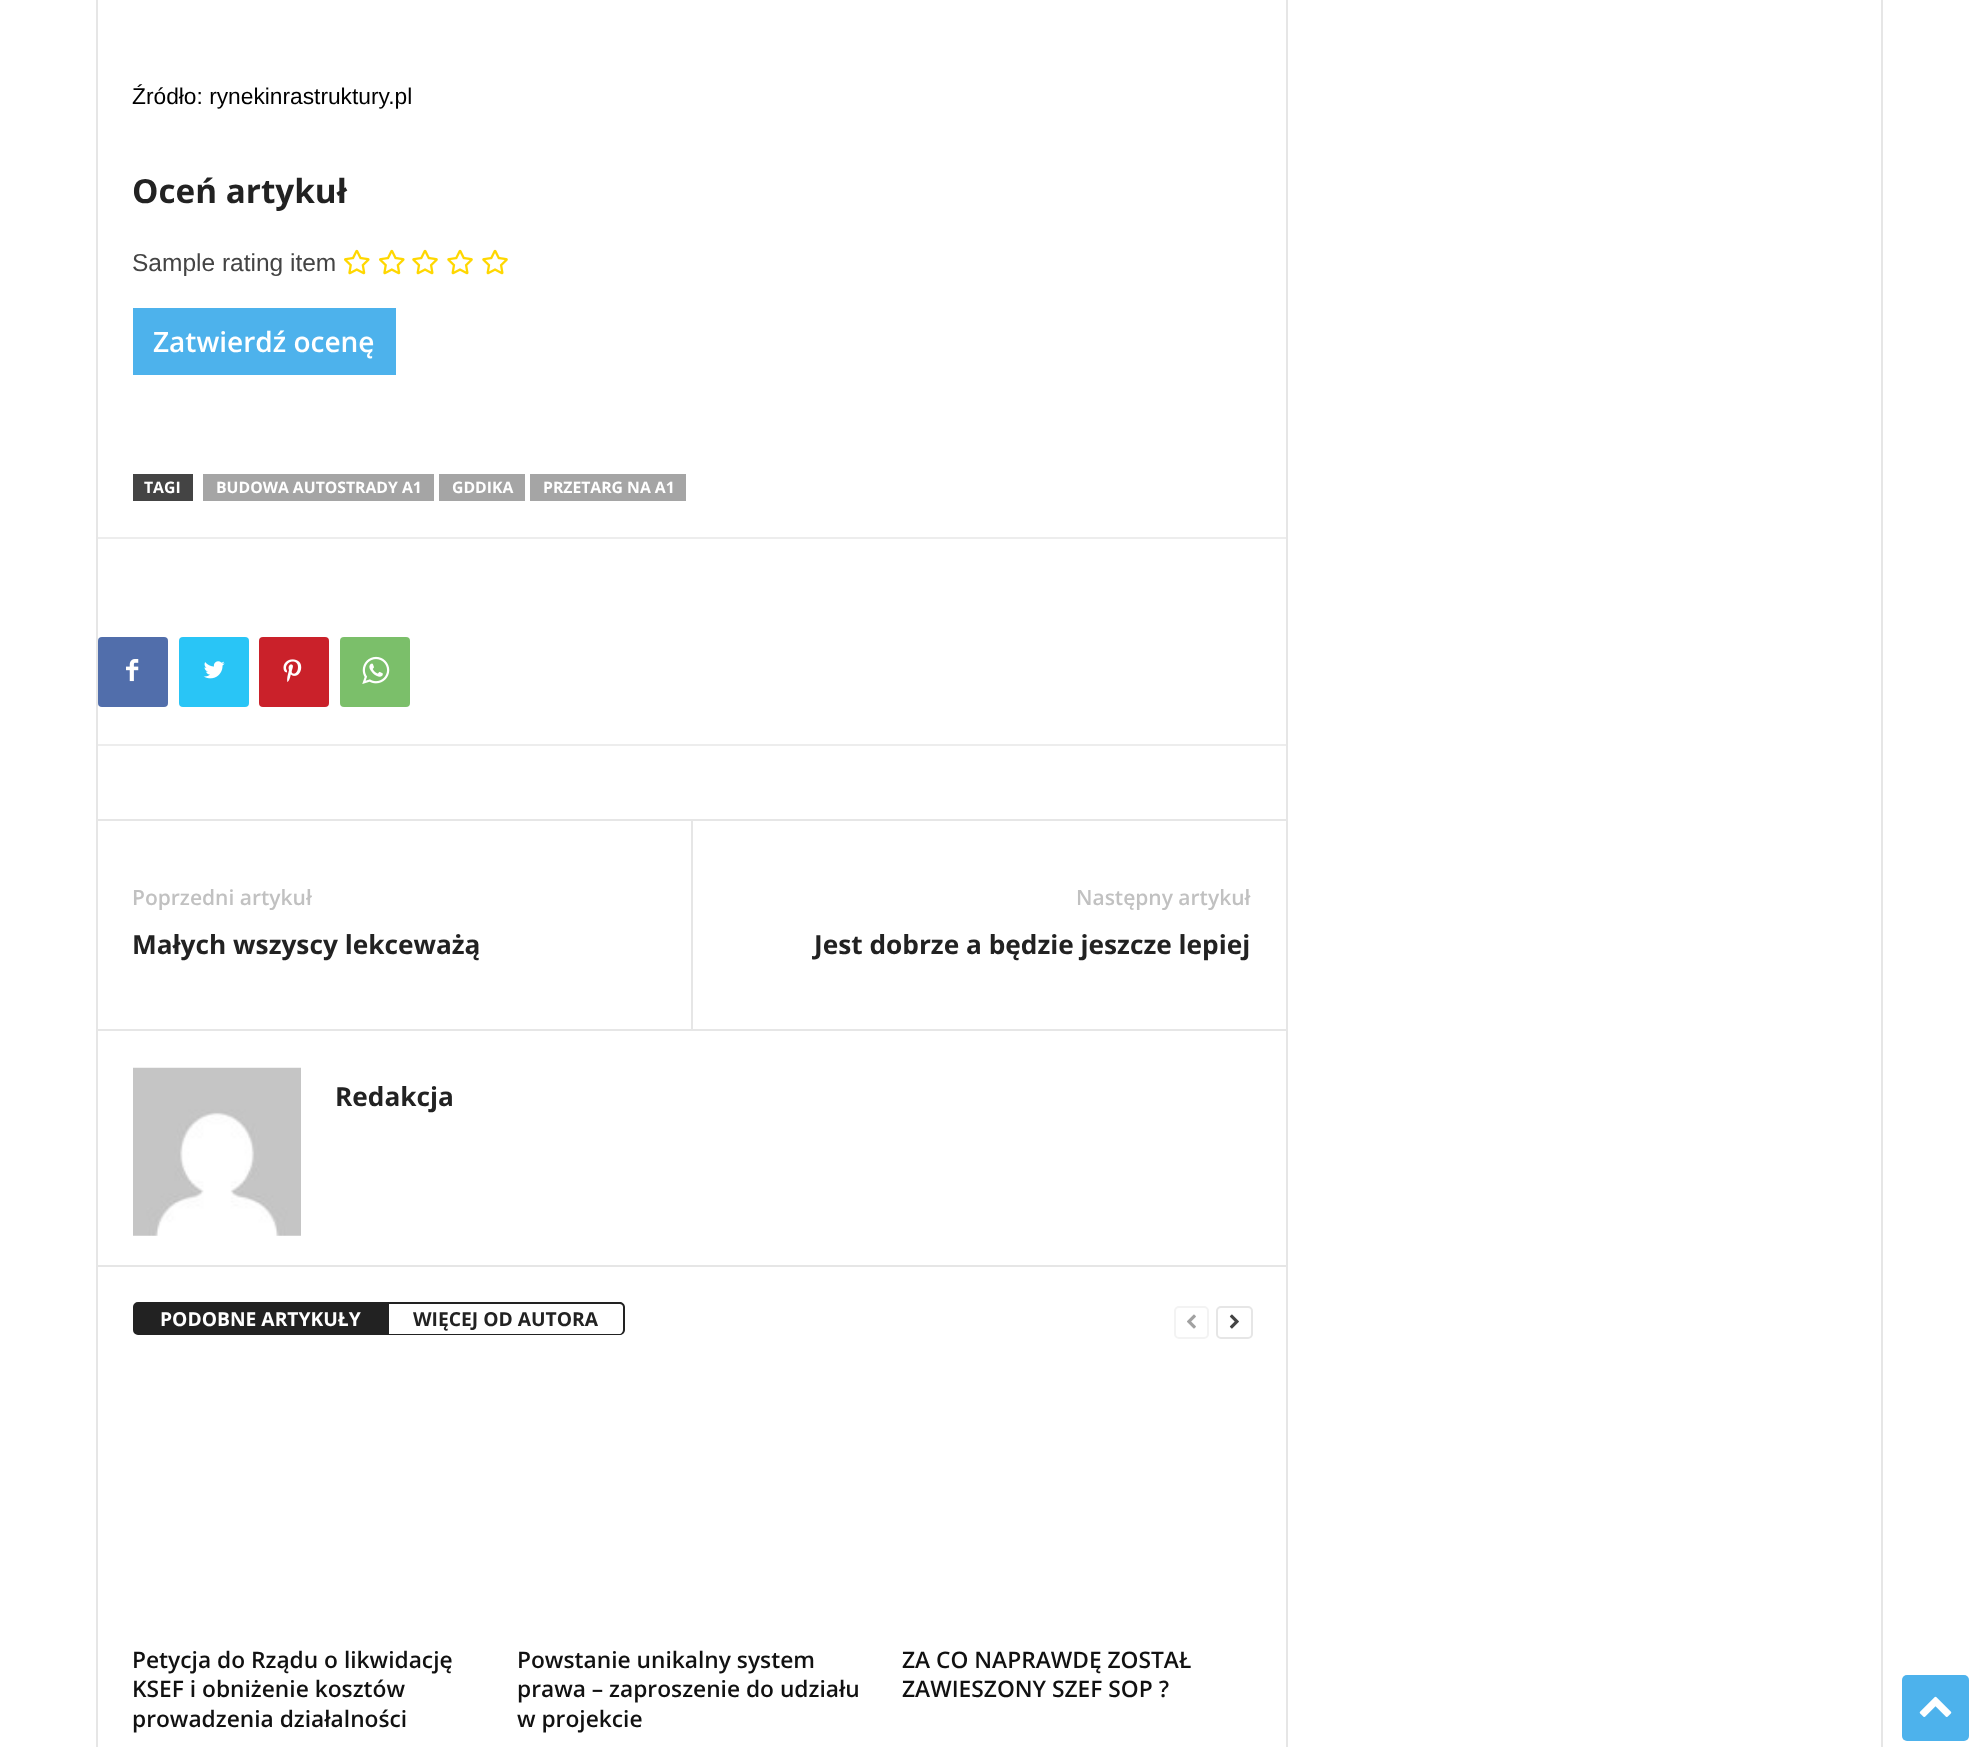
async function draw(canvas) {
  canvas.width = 1977;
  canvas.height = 1747;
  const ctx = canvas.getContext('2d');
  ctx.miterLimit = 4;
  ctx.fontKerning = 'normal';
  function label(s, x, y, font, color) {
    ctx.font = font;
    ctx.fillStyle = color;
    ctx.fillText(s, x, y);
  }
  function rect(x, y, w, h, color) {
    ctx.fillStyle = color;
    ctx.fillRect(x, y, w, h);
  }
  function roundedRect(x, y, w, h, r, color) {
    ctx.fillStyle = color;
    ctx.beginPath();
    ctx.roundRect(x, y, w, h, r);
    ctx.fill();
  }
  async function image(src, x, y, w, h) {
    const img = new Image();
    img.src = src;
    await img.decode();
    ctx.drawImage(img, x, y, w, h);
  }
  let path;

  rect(0, 0, 1977, 1747, '#fff');
  rect(96, 0, 2, 1747, '#e6e6e6');
  label('Źródło: rynekinrastruktury.pl', 132, 104, '22.75px Liberation Sans', '#000');
  label('Oceń artykuł', 132, 203, 'bold 33.25px Open Sans', '#222');
  label('Sample rating item', 132, 271, '24.5px Liberation Sans', '#444');
  await image('assets/img1.png', 344, 249, 26, 26);
  await image('assets/img1.png', 379, 249, 26, 26);
  await image('assets/img2.png', 412, 249, 26, 26);
  await image('assets/img2.png', 447, 249, 26, 26);
  await image('assets/img2.png', 482, 249, 26, 26);
  rect(133, 308, 263, 67, '#4db2ec');
  label('Zatwierdź ocenę', 153, 352, '600 28px Open Sans', '#fff');
  rect(133, 474, 60, 27, '#444');
  label('TAGI', 144, 493, 'bold 15.75px Open Sans', '#fff');
  rect(203, 474, 231, 27, '#a5a5a5');
  label('BUDOWA AUTOSTRADY A1', 216, 493, 'bold 15.75px Open Sans', '#fff');
  rect(439, 474, 86, 27, '#a5a5a5');
  label('GDDIKA', 452, 493, 'bold 15.75px Open Sans', '#fff');
  rect(530, 474, 156, 27, '#a5a5a5');
  label('PRZETARG NA A1', 543, 493, 'bold 15.75px Open Sans', '#fff');
  rect(98, 537, 1188, 2, '#ededed');
  rect(98, 744, 1188, 2, '#ededed');
  roundedRect(98, 637, 70, 70, 4, '#516eab');
  await image('assets/img3.png', 126, 659, 13, 23);
  roundedRect(179, 637, 70, 70, 4, '#29c5f6');
  await image('assets/img4.png', 203, 661, 22, 18);
  roundedRect(259, 637, 70, 70, 4, '#ca212a');
  await image('assets/img5.png', 283, 659, 19, 23);
  roundedRect(340, 637, 70, 70, 4, '#7bbf6a');
  await image('assets/img6.png', 362, 656, 28, 28);
  rect(98, 819, 1188, 2, '#e6e6e6');
  label('Poprzedni artykuł', 132, 905, '600 21px Open Sans', '#c1c1c1');
  label('Małych wszyscy lekceważą', 132, 954, 'bold 26.25px Open Sans', '#222');
  rect(691, 821, 2, 208, '#e6e6e6');
  label('Następny artykuł', 1076, 905, '600 21px Open Sans', '#c1c1c1');
  label('Jest dobrze a będzie jeszcze lepiej', 814, 954, 'bold 26.25px Open Sans', '#222');
  rect(98, 1029, 1188, 2, '#e6e6e6');
  await image('assets/img7.png', 133, 1067, 168, 169);
  label('Redakcja', 335, 1106, 'bold 26.25px Open Sans', '#222');
  rect(98, 1265, 1188, 2, '#e6e6e6');
  ctx.fillStyle = '#222';
  ctx.beginPath();
  ctx.roundRect(134, 1303, 254, 31, [4, 0, 0, 4]);
  ctx.fill();
  ctx.strokeStyle = '#222';
  ctx.lineWidth = 2;
  ctx.stroke();
  label('PODOBNE ARTYKUŁY', 160, 1326, 'bold 19.25px Open Sans', '#fff');
  ctx.fillStyle = '#222';
  path = new Path2D('M388 1302H620C622 1302 625 1304 625 1307V1330C625 1333 622 1335 620 1335H388ZM388 1304H620C621 1304 623 1305 623 1307V1330C623 1332 621 1334 620 1334H388Z');
  ctx.fill(path, 'evenodd');
  label('WIĘCEJ OD AUTORA', 413, 1326, 'bold 19.25px Open Sans', '#222');
  ctx.beginPath();
  ctx.roundRect(1175, 1307, 33, 31, 4);
  ctx.strokeStyle = '#f3f3f3';
  ctx.stroke();
  await image('assets/img8.png', 1187, 1314, 9, 15);
  ctx.beginPath();
  ctx.roundRect(1217, 1307, 35, 31, 4);
  ctx.strokeStyle = '#e6e6e6';
  ctx.stroke();
  await image('assets/img9.png', 1229, 1314, 10, 15);
  label('Petycja do Rządu o likwidację', 132, 1668, '600 22.75px Open Sans', '#111');
  label('KSEF i obniżenie kosztów', 132, 1697, '600 22.75px Open Sans', '#111');
  label('prowadzenia działalności', 132, 1727, '600 22.75px Open Sans', '#111');
  label('Powstanie unikalny system', 517, 1668, '600 22.75px Open Sans', '#111');
  label('prawa – zaproszenie do udziału', 517, 1697, '600 22.75px Open Sans', '#111');
  label('w projekcie', 517, 1727, '600 22.75px Open Sans', '#111');
  label('ZA CO NAPRAWDĘ ZOSTAŁ', 902, 1668, '600 22.75px Open Sans', '#111');
  label('ZAWIESZONY SZEF SOP ?', 902, 1697, '600 22.75px Open Sans', '#111');
  rect(1286, 0, 2, 1747, '#e6e6e6');
  rect(1881, 0, 2, 1747, '#e6e6e6');
  roundedRect(1902, 1675, 67, 66, 5, '#4db2ec');
  await image('assets/img10.png', 1919, 1696, 33, 21);
}

draw(document.querySelector('canvas'));
